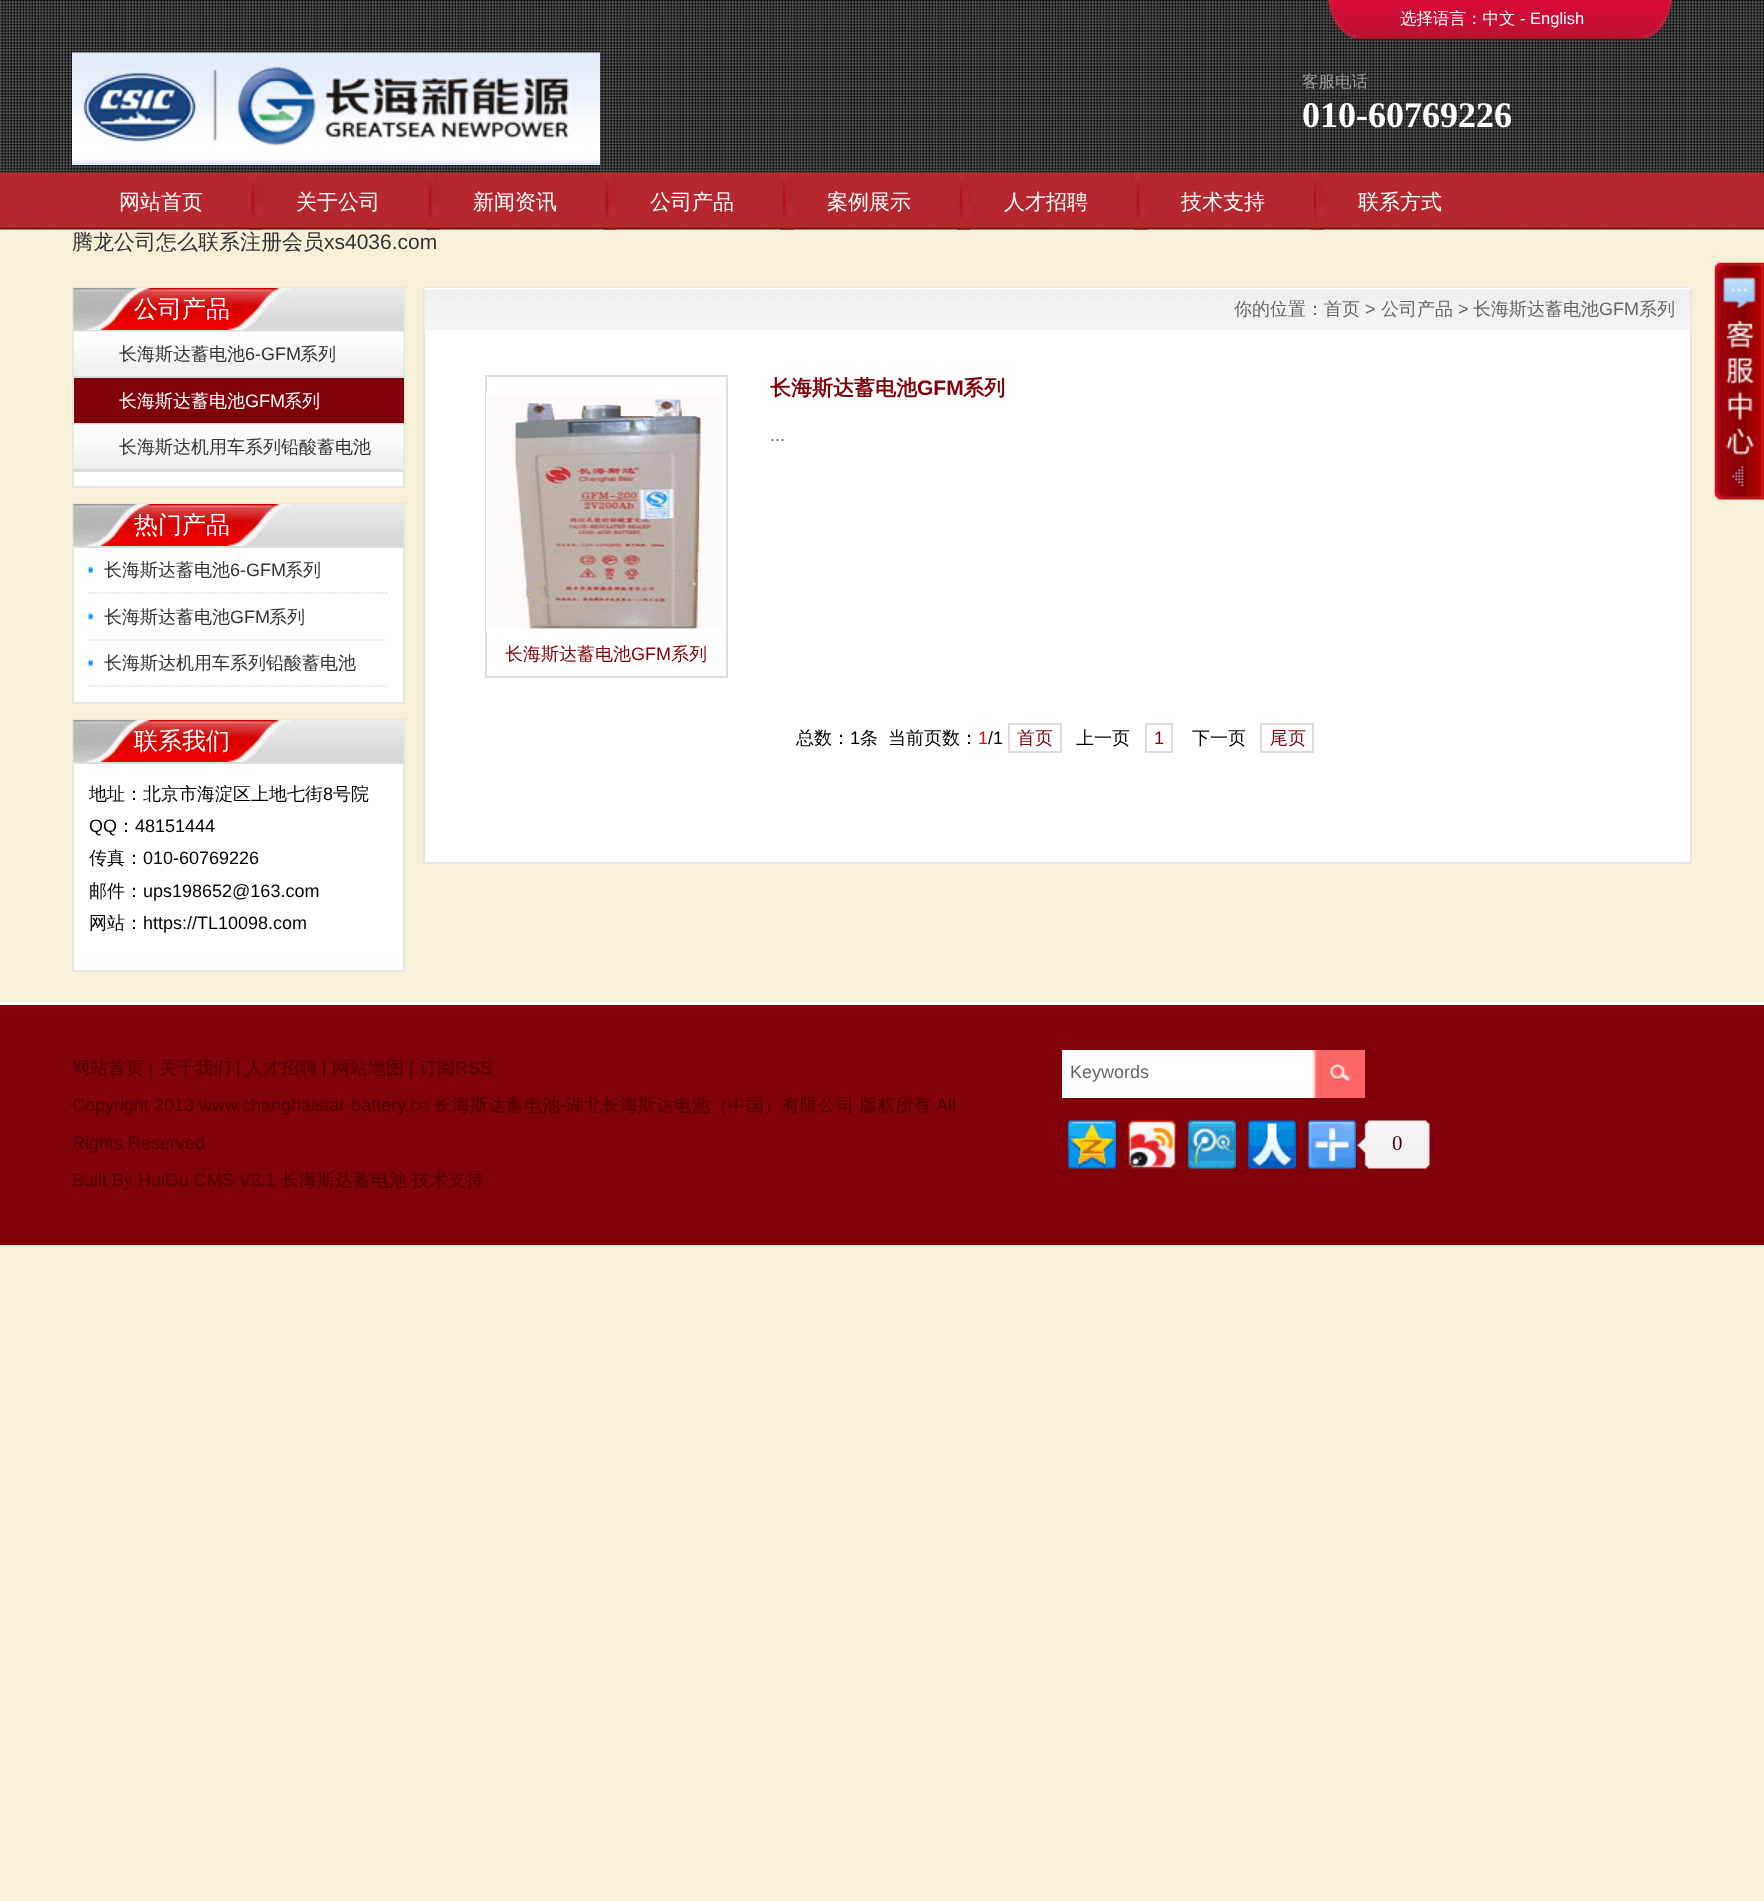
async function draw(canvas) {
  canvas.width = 1764;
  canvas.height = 1901;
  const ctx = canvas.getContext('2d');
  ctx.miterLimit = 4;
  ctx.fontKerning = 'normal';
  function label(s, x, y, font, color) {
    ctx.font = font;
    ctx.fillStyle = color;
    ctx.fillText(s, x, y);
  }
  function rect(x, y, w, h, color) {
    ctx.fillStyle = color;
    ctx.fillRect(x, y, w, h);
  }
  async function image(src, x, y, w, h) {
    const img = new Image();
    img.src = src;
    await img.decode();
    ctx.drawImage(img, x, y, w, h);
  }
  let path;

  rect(0, 0, 1764, 1901, '#f6f0d8');
  await image('assets/img1.png', 0, 0, 1764, 173);
  await image('assets/img2.png', 1327, 0, 346, 39);
  label('选择语言：中文', 1400, 24, '500 16.5px WenQuanYi Zen Hei', '#fff');
  label('- English', 1520, 24, '16.5px Liberation Sans', '#fff');
  await image('assets/img3.png', 72, 52, 528, 113);
  label('客服电话', 1302, 87, '500 16.5px WenQuanYi Zen Hei', '#999');
  label('010-60769226', 1302, 127, 'bold 36px Liberation Serif', '#fff');
  rect(0, 229, 1764, 1, '#fff');
  await image('assets/img4.png', 0, 172, 1764, 58);
  label('网站首页', 119, 209, '500 21px WenQuanYi Zen Hei', '#fff');
  await image('assets/img5.png', 249, 172, 14, 58);
  label('关于公司', 296, 209, '500 21px WenQuanYi Zen Hei', '#fff');
  await image('assets/img6.png', 426, 172, 14, 58);
  label('新闻资讯', 473, 209, '500 21px WenQuanYi Zen Hei', '#fff');
  await image('assets/img7.png', 603, 172, 14, 58);
  label('公司产品', 650, 209, '500 21px WenQuanYi Zen Hei', '#fff');
  await image('assets/img8.png', 780, 172, 14, 58);
  label('案例展示', 827, 209, '500 21px WenQuanYi Zen Hei', '#fff');
  await image('assets/img9.png', 957, 172, 14, 58);
  label('人才招聘', 1004, 209, '500 21px WenQuanYi Zen Hei', '#fff');
  await image('assets/img10.png', 1134, 172, 14, 58);
  label('技术支持', 1181, 209, '500 21px WenQuanYi Zen Hei', '#fff');
  await image('assets/img11.png', 1311, 172, 14, 58);
  label('联系方式', 1358, 209, '500 21px WenQuanYi Zen Hei', '#fff');
  label('腾龙公司怎么联系注册会员', 72, 249, '500 21px WenQuanYi Zen Hei', '#333');
  label('xs4036.com', 324, 249, '21px Liberation Sans', '#333');
  rect(74, 472, 329, 14, '#fff');
  ctx.strokeStyle = '#e5e5e5';
  ctx.lineWidth = 2;
  ctx.strokeRect(73, 288, 331, 199);
  await image('assets/img12.png', 73, 288, 331, 42);
  rect(74, 330, 330, 2, '#ddd');
  label('公司产品', 134, 317, '500 24px WenQuanYi Zen Hei', '#fff');
  await image('assets/img13.png', 73, 331, 331, 47);
  rect(74, 377, 330, 1, '#ddd');
  label('长海斯达蓄电池', 119, 360, '500 18px WenQuanYi Zen Hei', '#333');
  label('6-GFM', 245, 360, '18px Liberation Sans', '#333');
  label('系列', 300, 360, '500 18px WenQuanYi Zen Hei', '#333');
  await image('assets/img14.png', 73, 378, 1, 47);
  rect(74, 378, 330, 45, '#80010a');
  rect(74, 423, 330, 2, '#ddd');
  label('长海斯达蓄电池', 119, 407, '500 18px WenQuanYi Zen Hei', '#fff');
  label('GFM', 245, 407, '18px Liberation Sans', '#fff');
  label('系列', 284, 407, '500 18px WenQuanYi Zen Hei', '#fff');
  await image('assets/img15.png', 73, 424, 331, 47);
  rect(74, 470, 330, 2, '#ddd');
  label('长海斯达机用车系列铅酸蓄电池', 119, 453, '500 18px WenQuanYi Zen Hei', '#333');
  rect(74, 548, 329, 154, '#fff');
  ctx.strokeRect(73, 504, 331, 199);
  await image('assets/img12.png', 73, 504, 331, 42);
  rect(74, 546, 330, 2, '#ddd');
  label('热门产品', 134, 533, '500 24px WenQuanYi Zen Hei', '#fff');
  await image('assets/img16.png', 88, 565, 5, 8);
  path = new Path2D('M88.5 593H388.5');
  ctx.strokeStyle = '#ddd';
  ctx.lineWidth = 1.5;
  ctx.setLineDash([1.5, 1.5]);
  ctx.stroke(path);
  label('长海斯达蓄电池', 104, 576, '500 18px WenQuanYi Zen Hei', '#333');
  label('6-GFM', 230, 576, '18px Liberation Sans', '#333');
  label('系列', 285, 576, '500 18px WenQuanYi Zen Hei', '#333');
  await image('assets/img17.png', 88, 612, 5, 8);
  path = new Path2D('M88.5 640H388.5');
  ctx.stroke(path);
  label('长海斯达蓄电池', 104, 623, '500 18px WenQuanYi Zen Hei', '#333');
  label('GFM', 230, 623, '18px Liberation Sans', '#333');
  label('系列', 269, 623, '500 18px WenQuanYi Zen Hei', '#333');
  await image('assets/img16.png', 88, 658, 5, 8);
  path = new Path2D('M88.5 686H388.5');
  ctx.stroke(path);
  label('长海斯达机用车系列铅酸蓄电池', 104, 669, '500 18px WenQuanYi Zen Hei', '#333');
  rect(74, 764, 329, 206, '#fff');
  ctx.strokeStyle = '#e5e5e5';
  ctx.lineWidth = 2;
  ctx.setLineDash([]);
  ctx.strokeRect(73, 720, 331, 251);
  await image('assets/img12.png', 73, 720, 331, 42);
  rect(74, 762, 330, 2, '#ddd');
  label('联系我们', 134, 749, '500 24px WenQuanYi Zen Hei', '#fff');
  label('地址：北京市海淀区上地七街', 89, 800, '500 18px WenQuanYi Zen Hei', '#000');
  label('8', 323, 800, '18px Liberation Sans', '#000');
  label('号院', 333, 800, '500 18px WenQuanYi Zen Hei', '#000');
  label('QQ', 89, 832, '18px Liberation Sans', '#000');
  label('：', 117, 832, '500 18px WenQuanYi Zen Hei', '#000');
  label('48151444', 135, 832, '18px Liberation Sans', '#000');
  label('传真：', 89, 864, '500 18px WenQuanYi Zen Hei', '#000');
  label('010-60769226', 143, 864, '18px Liberation Sans', '#000');
  label('邮件：', 89, 897, '500 18px WenQuanYi Zen Hei', '#000');
  label('ups198652@163.com', 143, 897, '18px Liberation Sans', '#000');
  label('网站：', 89, 929, '500 18px WenQuanYi Zen Hei', '#000');
  label('https://TL10098.com', 143, 929, '18px Liberation Sans', '#000');
  rect(425, 330, 1265, 532, '#fff');
  ctx.strokeRect(424, 288, 1267, 575);
  await image('assets/img18.png', 424, 288, 1267, 42);
  label('你的位置：首页', 1234, 315, '500 18px WenQuanYi Zen Hei', '#666');
  label('>', 1365, 315, '18px Liberation Sans', '#666');
  label('公司产品', 1381, 315, '500 18px WenQuanYi Zen Hei', '#666');
  label('>', 1458, 315, '18px Liberation Sans', '#666');
  label('长海斯达蓄电池', 1473, 315, '500 18px WenQuanYi Zen Hei', '#666');
  label('GFM', 1599, 315, '18px Liberation Sans', '#666');
  label('系列', 1639, 315, '500 18px WenQuanYi Zen Hei', '#666');
  label('长海斯达蓄电池', 770, 395, 'bold 21px WenQuanYi Zen Hei', '#80010a');
  label('GFM', 917, 395, 'bold 21px Liberation Sans', '#80010a');
  label('系列', 963, 395, 'bold 21px WenQuanYi Zen Hei', '#80010a');
  label('...', 770, 441, '18px Liberation Sans', '#666');
  ctx.strokeStyle = '#dededc';
  ctx.strokeRect(486, 376, 241, 301);
  ctx.strokeStyle = '#fff';
  ctx.lineWidth = 3;
  ctx.strokeRect(487.5, 393.5, 237, 237);
  await image('assets/img19.png', 489, 394, 234, 235);
  label('长海斯达蓄电池', 505, 660, '500 18px WenQuanYi Zen Hei', '#80010a');
  label('GFM', 631, 660, '18px Liberation Sans', '#80010a');
  label('系列', 671, 660, '500 18px WenQuanYi Zen Hei', '#80010a');
  label('总数：', 796, 744, '500 18px WenQuanYi Zen Hei', '#000');
  label('1', 850, 744, '18px Liberation Sans', '#000');
  label('条', 860, 744, '500 18px WenQuanYi Zen Hei', '#000');
  label('当前页数：', 888, 744, '500 18px WenQuanYi Zen Hei', '#000');
  label('1', 978, 744, '18px Liberation Sans', '#f00');
  label('/1', 988, 744, '18px Liberation Sans', '#000');
  ctx.strokeStyle = '#dededc';
  ctx.lineWidth = 2;
  ctx.strokeRect(1009, 724, 52, 28);
  label('首页', 1017, 744, '500 18px WenQuanYi Zen Hei', '#80010a');
  label('上一页', 1076, 744, '500 18px WenQuanYi Zen Hei', '#000');
  ctx.strokeRect(1146, 724, 26, 28);
  label('1', 1154, 744, '18px Liberation Sans', '#80010a');
  label('下一页', 1192, 744, '500 18px WenQuanYi Zen Hei', '#000');
  ctx.strokeRect(1261, 724, 52, 28);
  label('尾页', 1270, 744, '500 18px WenQuanYi Zen Hei', '#80010a');
  rect(0, 1005, 1764, 240, '#80010a');
  rect(0, 1002, 1764, 3, '#fff');
  label('网站首页', 72, 1074, '500 18px WenQuanYi Zen Hei', '#490106');
  label('|', 149, 1074, '18px Liberation Sans', '#490106');
  label('关于我们', 159, 1074, '500 18px WenQuanYi Zen Hei', '#490106');
  label('|', 236, 1074, '18px Liberation Sans', '#490106');
  label('人才招聘', 245, 1074, '500 18px WenQuanYi Zen Hei', '#490106');
  label('|', 322, 1074, '18px Liberation Sans', '#490106');
  label('网站地图', 332, 1074, '500 18px WenQuanYi Zen Hei', '#490106');
  label('|', 409, 1074, '18px Liberation Sans', '#490106');
  label('订阅', 419, 1074, '500 18px WenQuanYi Zen Hei', '#490106');
  label('RSS', 455, 1074, '18px Liberation Sans', '#490106');
  label('Copyright 2013 www.changhaistar-battery.cn', 72, 1111, '18px Liberation Sans', '#490106');
  label('长海斯达蓄电池', 434, 1111, '500 18px WenQuanYi Zen Hei', '#490106');
  label('-', 560, 1111, '18px Liberation Sans', '#490106');
  label('湖北长海斯达电池（中国）有限公司 版权所有', 566, 1111, '500 18px WenQuanYi Zen Hei', '#490106');
  label('All', 936, 1111, '18px Liberation Sans', '#490106');
  label('Rights Reserved', 72, 1149, '18px Liberation Sans', '#490106');
  label('Built By HuiGu CMS V2.1', 72, 1186, '18px Liberation Sans', '#490106');
  label('长海斯达蓄电池', 281, 1186, '500 18px WenQuanYi Zen Hei', '#490106');
  label('技术支持', 412, 1186, '500 18px WenQuanYi Zen Hei', '#490106');
  await image('assets/img20.png', 1062, 1050, 303, 48);
  label('Keywords', 1070, 1078, '18px Liberation Sans', '#666');
  await image('assets/img21.png', 1067, 1120, 49, 49);
  await image('assets/img22.png', 1127, 1120, 49, 49);
  await image('assets/img23.png', 1187, 1120, 49, 49);
  await image('assets/img24.png', 1247, 1120, 49, 49);
  await image('assets/img25.png', 1307, 1120, 49, 49);
  await image('assets/img26.png', 1357, 1120, 73, 49);
  label('0', 1392, 1150, '21px Liberation Serif', '#490106');
  await image('assets/img27.png', 1714, 262, 50, 238);
}

draw(document.querySelector('canvas'));
